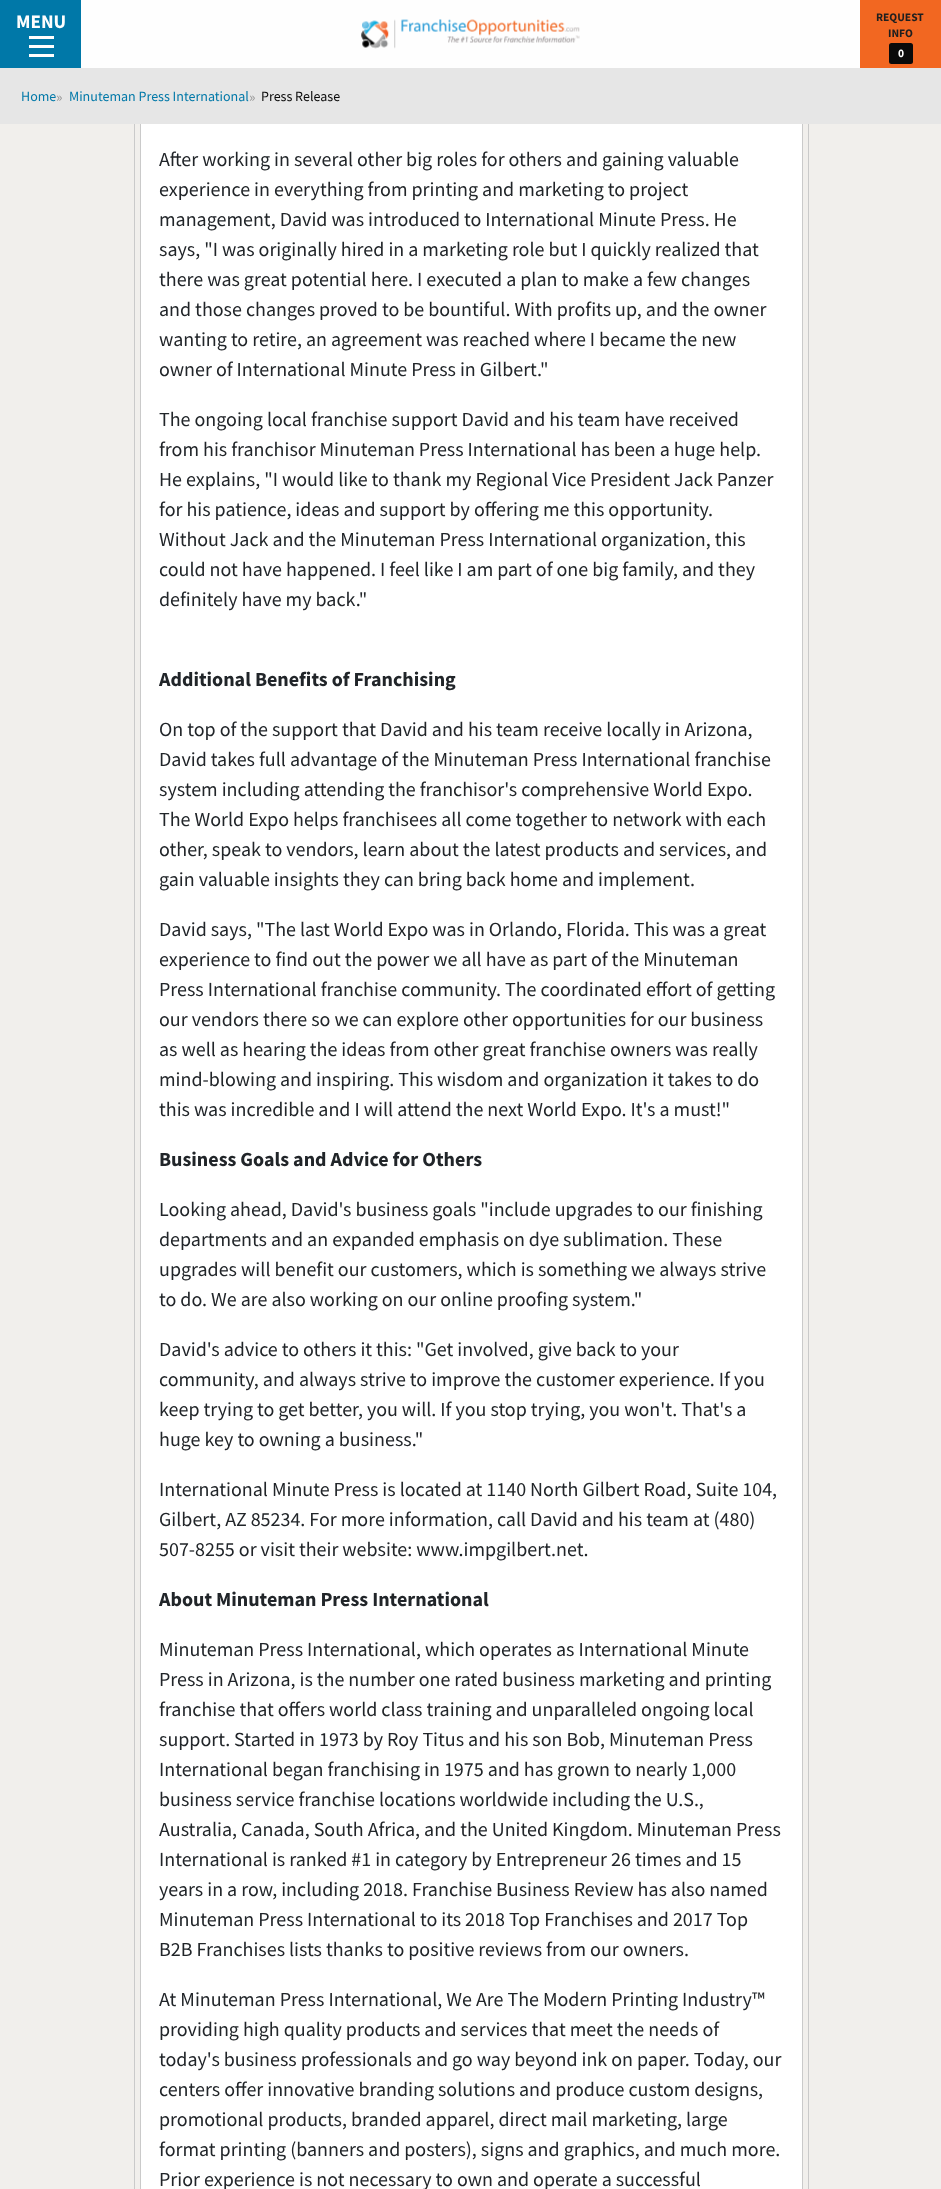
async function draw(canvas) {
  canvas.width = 941;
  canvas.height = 2189;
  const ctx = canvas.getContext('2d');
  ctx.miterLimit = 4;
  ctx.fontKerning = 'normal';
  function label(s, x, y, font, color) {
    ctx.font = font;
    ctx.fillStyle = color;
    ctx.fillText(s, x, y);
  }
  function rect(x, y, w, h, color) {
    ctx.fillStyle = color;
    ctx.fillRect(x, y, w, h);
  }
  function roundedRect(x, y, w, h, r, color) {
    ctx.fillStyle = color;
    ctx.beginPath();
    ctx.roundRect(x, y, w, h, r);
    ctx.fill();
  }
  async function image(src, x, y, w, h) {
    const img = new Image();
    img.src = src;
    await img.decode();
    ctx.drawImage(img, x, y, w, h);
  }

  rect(0, 0, 941, 2189, '#f1efec');
  ctx.strokeStyle = '#cacaca';
  ctx.strokeRect(134.5, -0.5, 674, 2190);
  rect(141, 124, 661, 2065, '#fff');
  ctx.strokeRect(140.5, -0.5, 662, 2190);
  rect(81, 0, 779, 68, '#fefefe');
  rect(0, 0, 81, 68, '#0078a8');
  label('MENU', 16, 28, 'bold 19px Source Sans Pro', '#fefefe');
  rect(29, 54, 25, 3, '#fefefe');
  rect(29, 45, 25, 3, '#fefefe');
  rect(29, 36, 25, 3, '#fefefe');
  await image('assets/img1.png', 361, 19, 219, 30);
  rect(860, 0, 81, 68, '#f26721');
  label('REQUEST', 876, 21, 'bold 11.5px Source Sans Pro', '#1f1f1f');
  label('INFO', 888, 37, 'bold 11.5px Source Sans Pro', '#1f1f1f');
  roundedRect(889, 43, 24, 21, 2.5, '#0a0a0a');
  label('0', 898, 57, 'bold 11.5px Source Sans Pro', '#fefefe');
  rect(0, 68, 941, 56, '#e6e6e6');
  label('Home', 21, 101, '14px Source Sans Pro', '#0078a8');
  label('»', 56, 102, '15px Source Sans Pro', '#999');
  label('Minuteman Press International', 69, 101, '14px Source Sans Pro', '#0078a8');
  label('»', 249, 102, '15px Source Sans Pro', '#999');
  label('Press Release', 261, 101, '14px Source Sans Pro', '#0a0a0a');
  label('After working in several other big roles for others and gaining valuable', 159, 166, '20px Source Sans Pro', '#212529');
  label('experience in everything from printing and marketing to project', 159, 196, '20px Source Sans Pro', '#212529');
  label('management, David was introduced to International Minute Press. He', 159, 226, '20px Source Sans Pro', '#212529');
  label('says, "I was originally hired in a marketing role but I quickly realized that', 159, 256, '20px Source Sans Pro', '#212529');
  label('there was great potential here. I executed a plan to make a few changes', 159, 286, '20px Source Sans Pro', '#212529');
  label('and those changes proved to be bountiful. With profits up, and the owner', 159, 316, '20px Source Sans Pro', '#212529');
  label('wanting to retire, an agreement was reached where I became the new', 159, 346, '20px Source Sans Pro', '#212529');
  label('owner of International Minute Press in Gilbert."', 159, 376, '20px Source Sans Pro', '#212529');
  label('The ongoing local franchise support David and his team have received', 159, 426, '20px Source Sans Pro', '#212529');
  label('from his franchisor Minuteman Press International has been a huge help.', 159, 456, '20px Source Sans Pro', '#212529');
  label('He explains, "I would like to thank my Regional Vice President Jack Panzer', 159, 486, '20px Source Sans Pro', '#212529');
  label('for his patience, ideas and support by offering me this opportunity.', 159, 516, '20px Source Sans Pro', '#212529');
  label('Without Jack and the Minuteman Press International organization, this', 159, 546, '20px Source Sans Pro', '#212529');
  label('could not have happened. I feel like I am part of one big family, and they', 159, 576, '20px Source Sans Pro', '#212529');
  label('definitely have my back."', 159, 606, '20px Source Sans Pro', '#212529');
  label('Additional Benefits of Franchising', 159, 686, 'bold 20px Source Sans Pro', '#212529');
  label('On top of the support that David and his team receive locally in Arizona,', 159, 736, '20px Source Sans Pro', '#212529');
  label('David takes full advantage of the Minuteman Press International franchise', 159, 766, '20px Source Sans Pro', '#212529');
  label('system including attending the franchisor\'s comprehensive World Expo.', 159, 796, '20px Source Sans Pro', '#212529');
  label('The World Expo helps franchisees all come together to network with each', 159, 826, '20px Source Sans Pro', '#212529');
  label('other, speak to vendors, learn about the latest products and services, and', 159, 856, '20px Source Sans Pro', '#212529');
  label('gain valuable insights they can bring back home and implement.', 159, 886, '20px Source Sans Pro', '#212529');
  label('David says, "The last World Expo was in Orlando, Florida. This was a great', 159, 936, '20px Source Sans Pro', '#212529');
  label('experience to find out the power we all have as part of the Minuteman', 159, 966, '20px Source Sans Pro', '#212529');
  label('Press International franchise community. The coordinated effort of getting', 159, 996, '20px Source Sans Pro', '#212529');
  label('our vendors there so we can explore other opportunities for our business', 159, 1026, '20px Source Sans Pro', '#212529');
  label('as well as hearing the ideas from other great franchise owners was really', 159, 1056, '20px Source Sans Pro', '#212529');
  label('mind-blowing and inspiring. This wisdom and organization it takes to do', 159, 1086, '20px Source Sans Pro', '#212529');
  label('this was incredible and I will attend the next World Expo. It\'s a must!"', 159, 1116, '20px Source Sans Pro', '#212529');
  label('Business Goals and Advice for Others', 159, 1166, 'bold 20px Source Sans Pro', '#212529');
  label('Looking ahead, David\'s business goals "include upgrades to our finishing', 159, 1216, '20px Source Sans Pro', '#212529');
  label('departments and an expanded emphasis on dye sublimation. These', 159, 1246, '20px Source Sans Pro', '#212529');
  label('upgrades will benefit our customers, which is something we always strive', 159, 1276, '20px Source Sans Pro', '#212529');
  label('to do. We are also working on our online proofing system."', 159, 1306, '20px Source Sans Pro', '#212529');
  label('David\'s advice to others it this: "Get involved, give back to your', 159, 1356, '20px Source Sans Pro', '#212529');
  label('community, and always strive to improve the customer experience. If you', 159, 1386, '20px Source Sans Pro', '#212529');
  label('keep trying to get better, you will. If you stop trying, you won\'t. That\'s a', 159, 1416, '20px Source Sans Pro', '#212529');
  label('huge key to owning a business."', 159, 1446, '20px Source Sans Pro', '#212529');
  label('International Minute Press is located at 1140 North Gilbert Road, Suite 104,', 159, 1496, '20px Source Sans Pro', '#212529');
  label('Gilbert, AZ 85234. For more information, call David and his team at (480)', 159, 1526, '20px Source Sans Pro', '#212529');
  label('507-8255 or visit their website: www.impgilbert.net.', 159, 1556, '20px Source Sans Pro', '#212529');
  label('About Minuteman Press International', 159, 1606, 'bold 20px Source Sans Pro', '#212529');
  label('Minuteman Press International, which operates as International Minute', 159, 1656, '20px Source Sans Pro', '#212529');
  label('Press in Arizona, is the number one rated business marketing and printing', 159, 1686, '20px Source Sans Pro', '#212529');
  label('franchise that offers world class training and unparalleled ongoing local', 159, 1716, '20px Source Sans Pro', '#212529');
  label('support. Started in 1973 by Roy Titus and his son Bob, Minuteman Press', 159, 1746, '20px Source Sans Pro', '#212529');
  label('International began franchising in 1975 and has grown to nearly 1,000', 159, 1776, '20px Source Sans Pro', '#212529');
  label('business service franchise locations worldwide including the U.S.,', 159, 1806, '20px Source Sans Pro', '#212529');
  label('Australia, Canada, South Africa, and the United Kingdom. Minuteman Press', 159, 1836, '20px Source Sans Pro', '#212529');
  label('International is ranked #1 in category by Entrepreneur 26 times and 15', 159, 1866, '20px Source Sans Pro', '#212529');
  label('years in a row, including 2018. Franchise Business Review has also named', 159, 1896, '20px Source Sans Pro', '#212529');
  label('Minuteman Press International to its 2018 Top Franchises and 2017 Top', 159, 1926, '20px Source Sans Pro', '#212529');
  label('B2B Franchises lists thanks to positive reviews from our owners.', 159, 1956, '20px Source Sans Pro', '#212529');
  label('At Minuteman Press International, We Are The Modern Printing Industry™', 159, 2006, '20px Source Sans Pro', '#212529');
  label('providing high quality products and services that meet the needs of', 159, 2036, '20px Source Sans Pro', '#212529');
  label('today\'s business professionals and go way beyond ink on paper. Today, our', 159, 2066, '20px Source Sans Pro', '#212529');
  label('centers offer innovative branding solutions and produce custom designs,', 159, 2096, '20px Source Sans Pro', '#212529');
  label('promotional products, branded apparel, direct mail marketing, large', 159, 2126, '20px Source Sans Pro', '#212529');
  label('format printing (banners and posters), signs and graphics, and much more.', 159, 2156, '20px Source Sans Pro', '#212529');
  label('Prior experience is not necessary to own and operate a successful', 159, 2186, '20px Source Sans Pro', '#212529');
}

draw(document.querySelector('canvas'));
